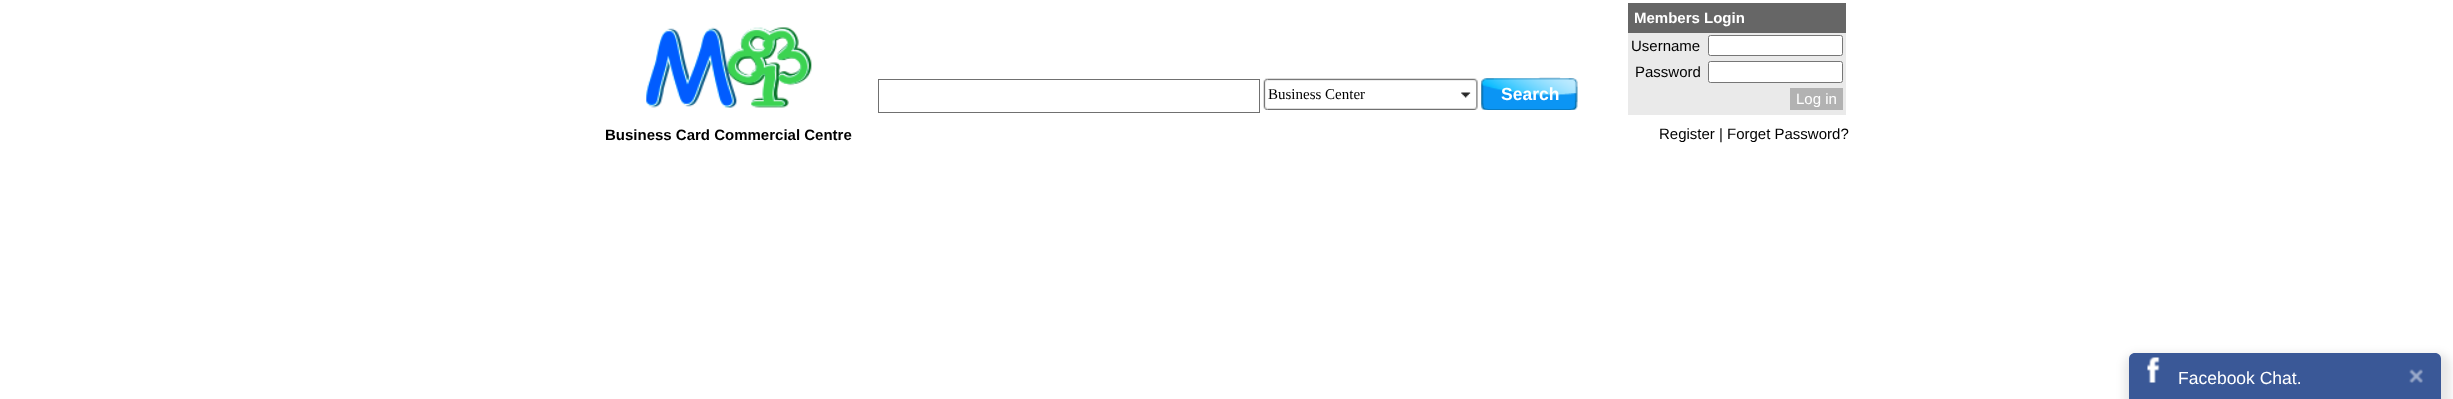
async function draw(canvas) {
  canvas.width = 2453;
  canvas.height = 399;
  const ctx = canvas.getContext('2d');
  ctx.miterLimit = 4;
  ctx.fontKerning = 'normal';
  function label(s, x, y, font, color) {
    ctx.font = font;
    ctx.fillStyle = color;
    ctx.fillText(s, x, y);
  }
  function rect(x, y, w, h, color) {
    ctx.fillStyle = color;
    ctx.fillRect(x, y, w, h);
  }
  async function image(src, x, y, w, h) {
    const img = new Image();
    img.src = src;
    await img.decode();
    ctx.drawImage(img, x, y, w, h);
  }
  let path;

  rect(0, 0, 2453, 399, '#fff');
  ctx.strokeStyle = '#707070';
  ctx.strokeRect(878.5, 79.5, 381, 33);
  await image('assets/img1.png', 1263, 78, 5, 32);
  await image('assets/img2.png', 1267, 78, 188, 32);
  label('Business Center', 1268, 99, '15px Liberation Serif', '#000');
  await image('assets/img3.png', 1455, 78, 23, 32);
  await image('assets/img4.png', 1481, 77, 97, 33);
  label('Search', 1501, 100, 'bold 17.5px Liberation Sans', '#fff');
  rect(1628, 33, 218, 82, '#eaeaea');
  rect(1628, 3, 218, 30, '#666');
  label('Members Login', 1634, 23, 'bold 15px Liberation Sans', '#fff');
  label('Username', 1631, 51, '15px Liberation Sans', '#000');
  ctx.fillStyle = '#fff';
  ctx.beginPath();
  ctx.roundRect(1708.5, 35.5, 134, 20, 2);
  ctx.fill();
  ctx.strokeStyle = '#767676';
  ctx.stroke();
  label('Password', 1635, 77, '15px Liberation Sans', '#000');
  ctx.fillStyle = '#fff';
  ctx.beginPath();
  ctx.roundRect(1708.5, 61.5, 134, 21, 2);
  ctx.fill();
  ctx.stroke();
  rect(1790, 88, 53, 22, '#b2b2b2');
  label('Log in', 1796, 104, '15px Liberation Sans', '#fff');
  label('Register', 1659, 139, '15px Liberation Sans', '#000');
  label('|', 1719, 139, '15px Liberation Sans', '#000');
  label('Forget Password?', 1727, 139, '15px Liberation Sans', '#000');
  await image('assets/img5.png', 646, 27, 166, 81);
  label('Business Card Commercial Centre', 605, 140, 'bold 15px Liberation Sans', '#000');
  ctx.fillStyle = '#00000017';
  ctx.filter = 'blur(4px)';
  ctx.beginPath();
  ctx.roundRect(2124, 353, 327, 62, 14);
  ctx.fill();
  ctx.filter = 'none';
  ctx.fillStyle = '#3a5897';
  path = new Path2D('M2135 353H2435C2438.5 353 2441 355.5 2441 359V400H2129V359C2129 355.5 2131.5 353 2135 353Z');
  ctx.fill(path);
  await image('assets/img6.png', 2147, 357, 13, 26);
  label('Facebook Chat.', 2178, 384, '17.5px Liberation Sans', '#fff');
  await image('assets/img7.png', 2409, 369, 14, 14);
}

draw(document.querySelector('canvas'));
